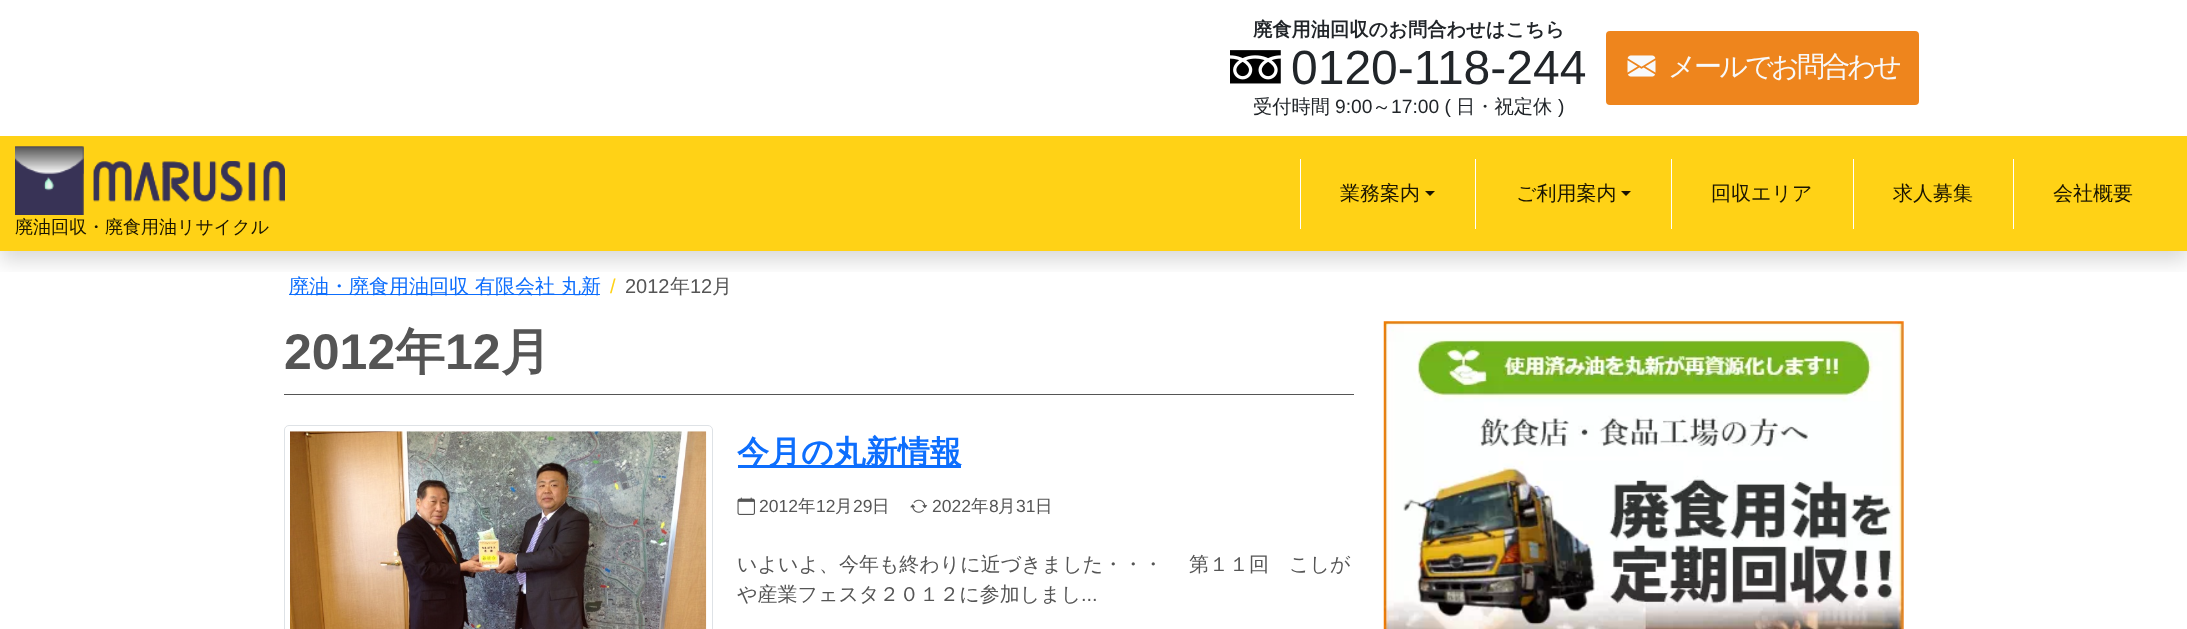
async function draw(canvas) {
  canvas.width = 2187;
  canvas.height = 629;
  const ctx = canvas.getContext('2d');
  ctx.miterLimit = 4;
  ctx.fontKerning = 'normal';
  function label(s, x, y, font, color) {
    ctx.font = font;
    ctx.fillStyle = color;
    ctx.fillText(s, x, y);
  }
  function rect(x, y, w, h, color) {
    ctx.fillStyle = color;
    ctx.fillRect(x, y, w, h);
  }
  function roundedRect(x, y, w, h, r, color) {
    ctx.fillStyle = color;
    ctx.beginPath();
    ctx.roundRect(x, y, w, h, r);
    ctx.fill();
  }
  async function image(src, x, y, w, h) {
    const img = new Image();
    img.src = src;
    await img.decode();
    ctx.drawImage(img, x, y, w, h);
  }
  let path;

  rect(0, 0, 2187, 629, '#fff');
  ctx.save();
  ctx.beginPath();
  ctx.rect(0, 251, 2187, 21);
  ctx.clip();
  ctx.fillStyle = '#00000026';
  ctx.filter = 'blur(10px)';
  ctx.beginPath();
  ctx.rect(0, 10, 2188, 251);
  ctx.fill();
  ctx.filter = 'none';
  ctx.restore();
  label('廃食用油回収のお問合わせはこちら', 1253, 36, 'bold 19.25px WenQuanYi Zen Hei', '#212529');
  await image('assets/img1.png', 1230, 50, 51, 34);
  label('0120-118-244', 1291, 84, '48px Liberation Sans', '#212529');
  label('受付時間', 1253, 113, '500 19.25px WenQuanYi Zen Hei', '#212529');
  label('9:00', 1335, 113, '19.25px Liberation Sans', '#212529');
  label('～', 1372, 113, '500 19.25px WenQuanYi Zen Hei', '#212529');
  label('17:00 (', 1391, 113, '19.25px Liberation Sans', '#212529');
  label('日・祝定休', 1456, 113, '500 19.25px WenQuanYi Zen Hei', '#212529');
  label(')', 1558, 113, '19.25px Liberation Sans', '#212529');
  roundedRect(1606, 31, 313, 74, 4, '#ee851d');
  await image('assets/img2.png', 1627, 55, 29, 22);
  ctx.letterSpacing = '-2.75px';
  label('メールでお問合わせ', 1668, 76, '500 28px WenQuanYi Zen Hei', '#f8f9fa');
  rect(0, 136, 2187, 115, '#ffd216');
  rect(1300, 159, 1, 70, '#fff');
  ctx.letterSpacing = '0px';
  label('業務案内', 1340, 200, '500 20px WenQuanYi Zen Hei', '#1a1502');
  path = new Path2D('M1425 191H1435L1430 196Z');
  ctx.fill(path);
  rect(1475, 159, 1, 70, '#fff');
  label('ご利用案内', 1516, 200, '500 20px WenQuanYi Zen Hei', '#1a1502');
  path = new Path2D('M1621 191H1631L1626 196Z');
  ctx.fill(path);
  rect(1671, 159, 1, 70, '#fff');
  label('回収エリア', 1711, 200, '500 20px WenQuanYi Zen Hei', '#1a1502');
  rect(1853, 159, 1, 70, '#fff');
  label('求人募集', 1893, 200, '500 20px WenQuanYi Zen Hei', '#1a1502');
  rect(2013, 159, 1, 70, '#fff');
  label('会社概要', 2053, 200, '500 20px WenQuanYi Zen Hei', '#1a1502');
  await image('assets/img3.png', 15, 146, 270, 69);
  label('廃油回収・廃食用油リサイクル', 15, 233, '500 18px WenQuanYi Zen Hei', '#1a1502');
  rect(289, 294, 311, 1, '#0d6efd');
  label('廃油・廃食用油回収 有限会社 丸新', 289, 293, '500 20px WenQuanYi Zen Hei', '#0d6efd');
  label('/', 610, 293, '20px Liberation Sans', '#ffd216');
  label('2012', 625, 293, '20px Liberation Sans', '#555');
  label('年', 670, 293, '500 20px WenQuanYi Zen Hei', '#555');
  label('12', 690, 293, '20px Liberation Sans', '#555');
  label('月', 712, 293, '500 20px WenQuanYi Zen Hei', '#555');
  rect(284, 394, 1070, 1, '#555');
  label('2012', 284, 369, 'bold 50px Liberation Sans', '#555');
  label('年', 395, 369, 'bold 50px WenQuanYi Zen Hei', '#555');
  label('12', 445, 369, 'bold 50px Liberation Sans', '#555');
  label('月', 501, 369, 'bold 50px WenQuanYi Zen Hei', '#555');
  ctx.beginPath();
  ctx.roundRect(284.5, 425.5, 428, 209, 4.5);
  ctx.strokeStyle = '#dee2e6';
  ctx.stroke();
  await image('assets/img4.png', 290, 431, 417, 198);
  rect(738, 465, 223, 3, '#0d6efd');
  label('今月の丸新情報', 737, 463, 'bold 32px WenQuanYi Zen Hei', '#0d6efd');
  await image('assets/img5.png', 737, 497, 18, 18);
  label('2012', 759, 512, '17.5px Liberation Sans', '#555');
  label('年', 798, 512, '500 17.5px WenQuanYi Zen Hei', '#555');
  label('12', 816, 512, '17.5px Liberation Sans', '#555');
  label('月', 835, 512, '500 17.5px WenQuanYi Zen Hei', '#555');
  label('29', 853, 512, '17.5px Liberation Sans', '#555');
  label('日', 872, 512, '500 17.5px WenQuanYi Zen Hei', '#555');
  await image('assets/img6.png', 910, 499, 18, 14);
  label('2022', 932, 512, '17.5px Liberation Sans', '#555');
  label('年', 971, 512, '500 17.5px WenQuanYi Zen Hei', '#555');
  label('8', 989, 512, '17.5px Liberation Sans', '#555');
  label('月', 998, 512, '500 17.5px WenQuanYi Zen Hei', '#555');
  label('31', 1016, 512, '17.5px Liberation Sans', '#555');
  label('日', 1035, 512, '500 17.5px WenQuanYi Zen Hei', '#555');
  label('いよいよ、今年も終わりに近づきました・・・ 　第１１回　こしが', 737, 571, '500 20px WenQuanYi Zen Hei', '#555');
  label('や産業フェスタ２０１２に参加しまし', 737, 601, '500 20px WenQuanYi Zen Hei', '#555');
  label('...', 1081, 601, '20px Liberation Sans', '#555');
  await image('assets/img7.png', 1383, 321, 521, 308);
}

draw(document.querySelector('canvas'));
